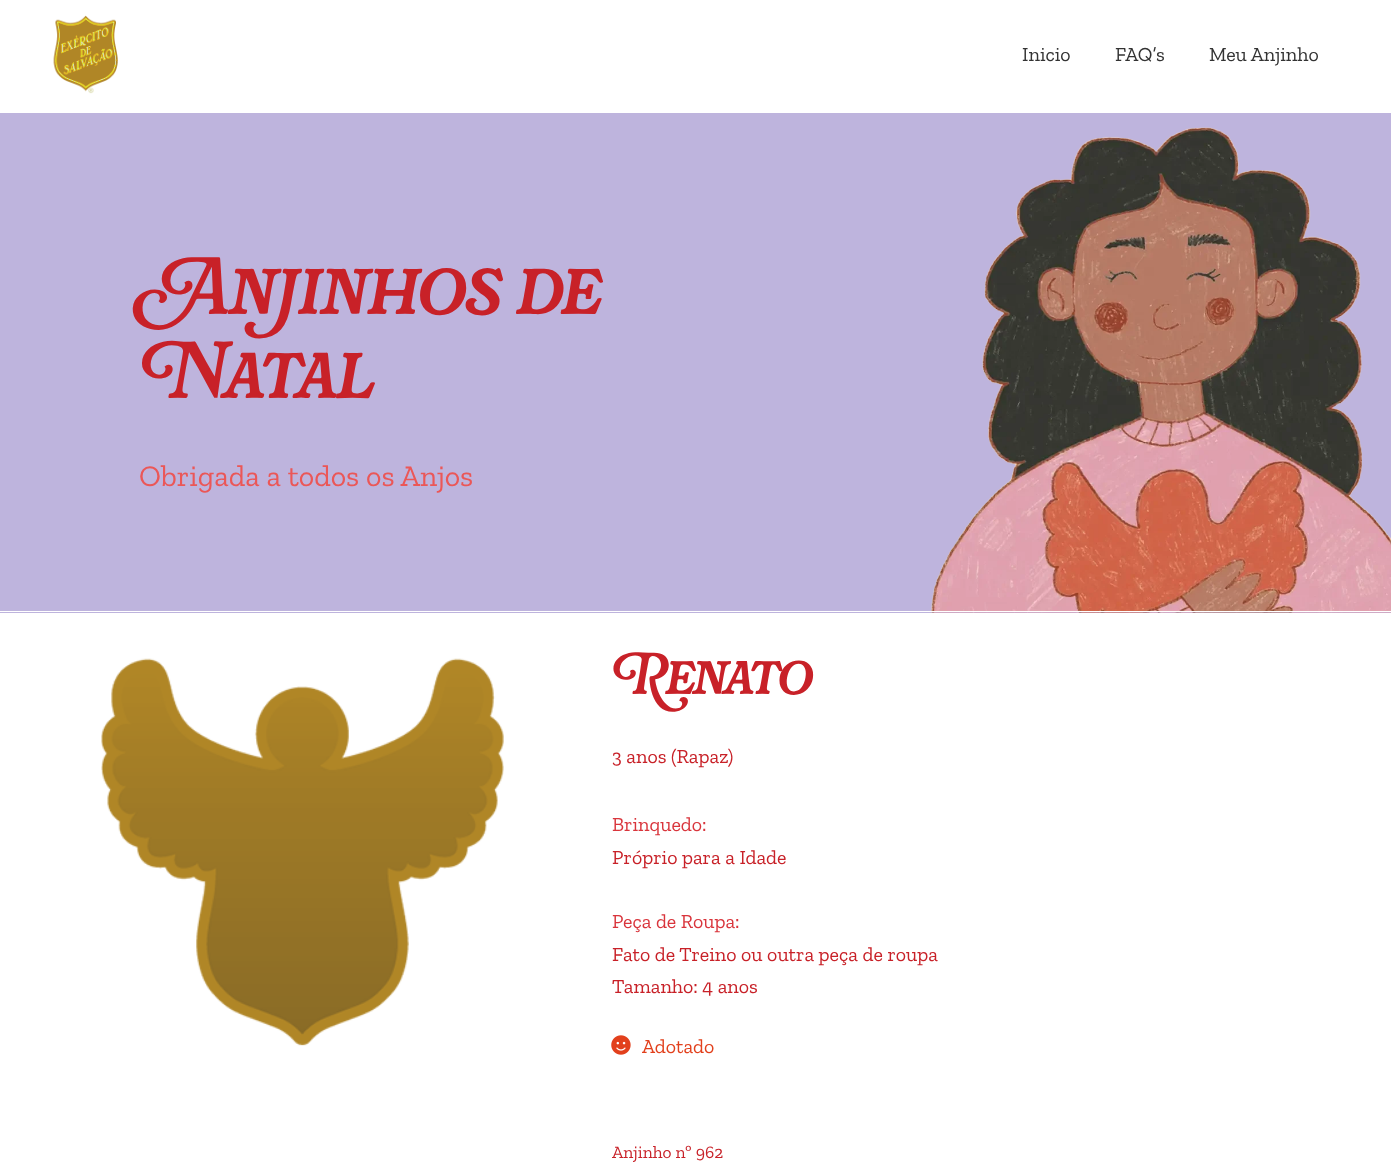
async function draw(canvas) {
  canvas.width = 1391;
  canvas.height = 1172;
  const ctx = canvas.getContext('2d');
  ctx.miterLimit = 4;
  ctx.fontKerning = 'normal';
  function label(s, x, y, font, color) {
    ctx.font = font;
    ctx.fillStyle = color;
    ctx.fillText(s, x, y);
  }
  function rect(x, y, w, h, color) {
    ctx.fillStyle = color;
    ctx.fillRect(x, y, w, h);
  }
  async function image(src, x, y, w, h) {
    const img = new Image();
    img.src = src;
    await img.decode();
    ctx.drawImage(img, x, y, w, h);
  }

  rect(0, 0, 1391, 1172, '#fff');
  rect(0, 113, 1391, 500, '#beb4dd');
  await image('assets/img1.png', 931, 127, 460, 486);
  rect(0, 611, 1391, 1, '#fff');
  label('Inicio', 1022, 61, '20px Zilla Slab', '#333');
  label('FAQ’s', 1115, 61, '20px Zilla Slab', '#333');
  label('Meu Anjinho', 1209, 61, '20px Zilla Slab', '#333');
  label('Anjinhos de', 139, 314, 'bold 72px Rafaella', '#c82128');
  label('Natal', 139, 398, 'bold 72px Rafaella', '#c82128');
  label('Obrigada a todos os Anjos', 139, 486, '30px Zilla Slab', '#eb5757');
  await image('assets/img2.png', 101, 658, 403, 388);
  ctx.letterSpacing = '-1.25px';
  label('Renato', 612, 694, 'bold 52.5px Rafaella', '#c82128');
  ctx.letterSpacing = '0px';
  label('3 anos (Rapaz)', 612, 763, '20px Zilla Slab', '#c82128');
  label('Brinquedo:', 612, 831, '20px Zilla Slab', '#d9353c');
  label('Próprio para a Idade', 612, 864, '20px Zilla Slab', '#c82128');
  label('Peça de Roupa:', 612, 928, '20px Zilla Slab', '#d9353c');
  label('Fato de Treino ou outra peça de roupa', 612, 961, '20px Zilla Slab', '#c82128');
  label('Tamanho: 4 anos', 612, 993, '20px Zilla Slab', '#c82128');
  await image('assets/img3.png', 611, 1035, 20, 20);
  label('Adotado', 642, 1053, '20px Zilla Slab', '#e2401c');
  await image('assets/img4.png', 53, 15, 65, 79);
  label('Anjinho nº 962', 612, 1158, '17.5px Zilla Slab', '#c82128');
}

draw(document.querySelector('canvas'));
